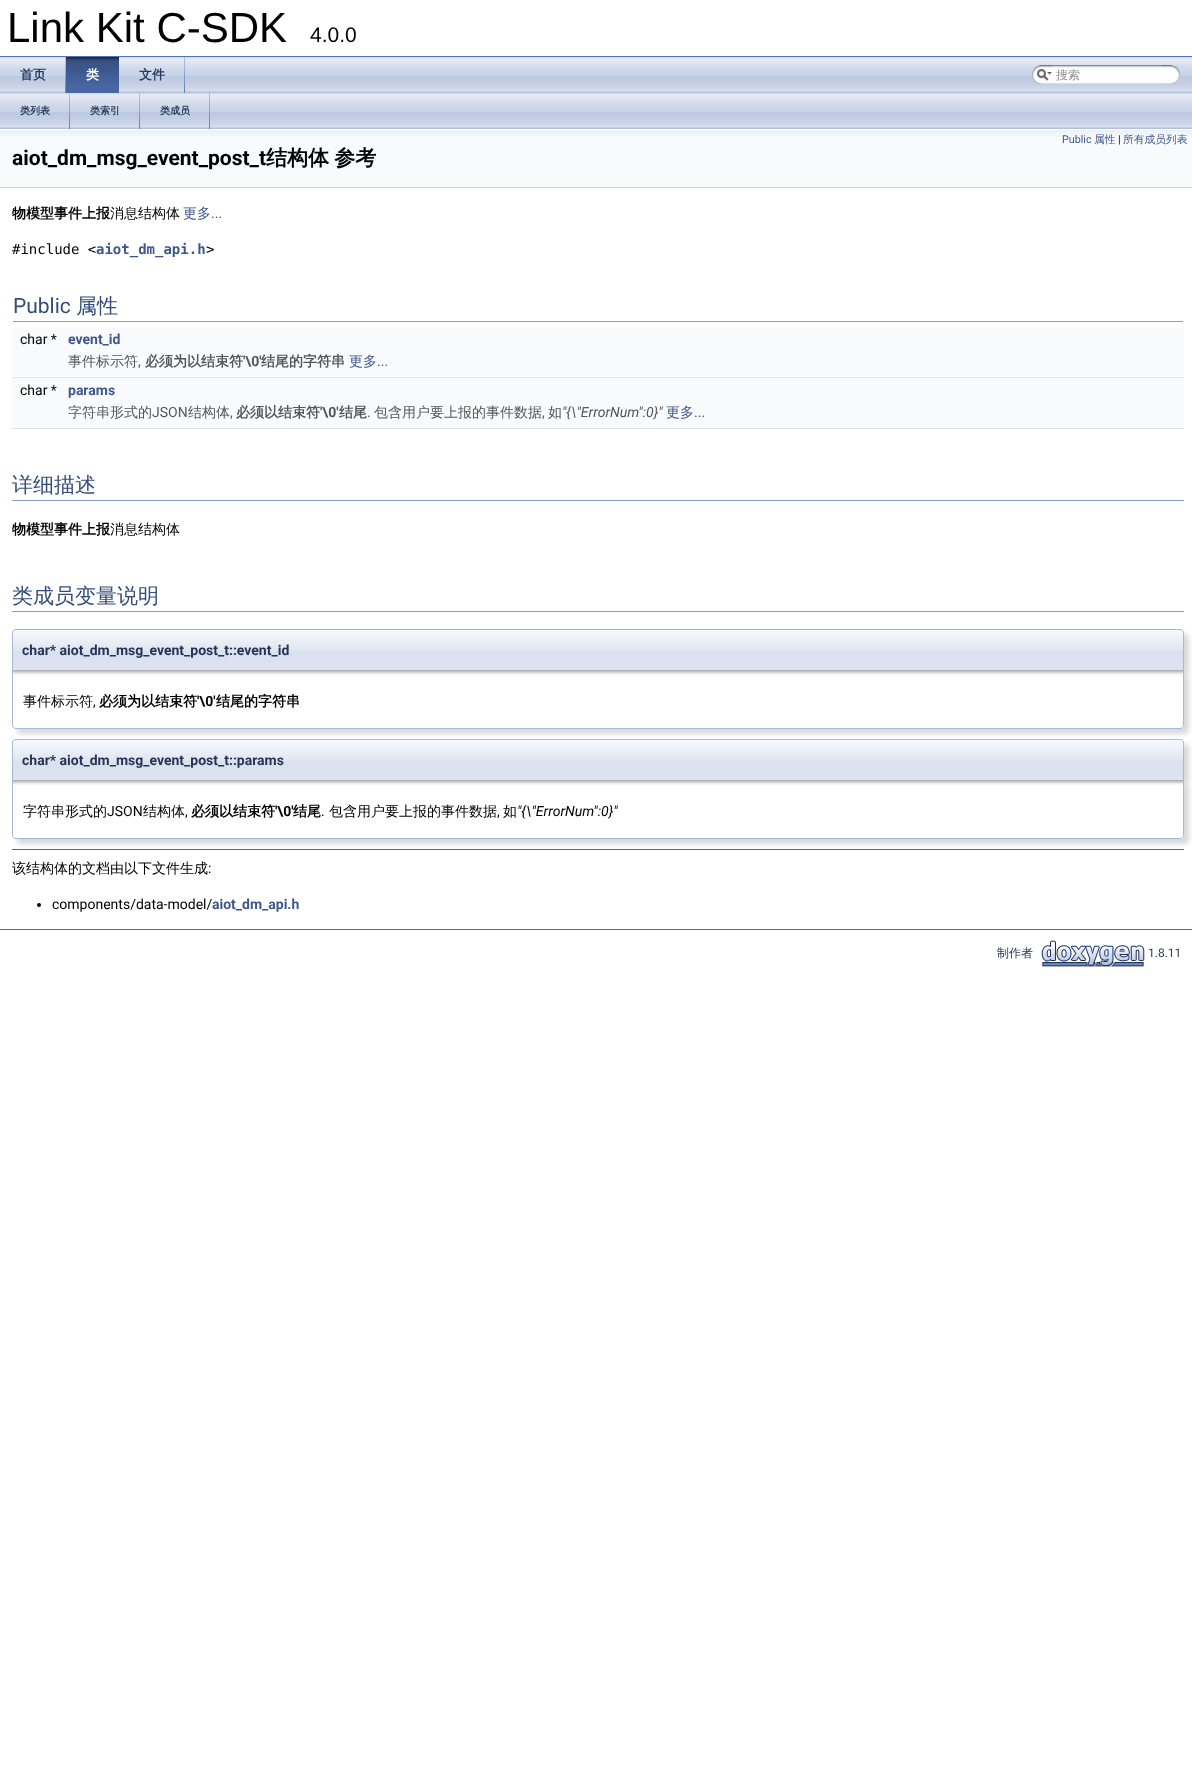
async function draw(canvas) {
  canvas.width = 1192;
  canvas.height = 1767;
  const ctx = canvas.getContext('2d');
  ctx.miterLimit = 4;
  ctx.fontKerning = 'normal';
  function label(s, x, y, font, color) {
    ctx.font = font;
    ctx.fillStyle = color;
    ctx.fillText(s, x, y);
  }
  function rect(x, y, w, h, color) {
    ctx.fillStyle = color;
    ctx.fillRect(x, y, w, h);
  }
  async function image(src, x, y, w, h) {
    const img = new Image();
    img.src = src;
    await img.decode();
    ctx.drawImage(img, x, y, w, h);
  }
  let path;

  rect(0, 0, 1192, 1767, '#fff');
  rect(0, 56, 1192, 1, '#5373b4');
  label('Link Kit C-SDK', 7, 42, '42px Liberation Sans', '#000');
  label('4.0.0', 310, 42, '21px Liberation Sans', '#000');
  await image('assets/img1.png', 0, 57, 1192, 36);
  await image('assets/img2.png', 65, 57, 1, 36);
  label('首页', 20, 79, 'bold 13px WenQuanYi Zen Hei', '#283a5d');
  await image('assets/img3.png', 66, 57, 53, 36);
  label('类', 86, 79, 'bold 13px WenQuanYi Zen Hei', '#fff');
  await image('assets/img2.png', 184, 57, 1, 36);
  label('文件', 139, 79, 'bold 13px WenQuanYi Zen Hei', '#283a5d');
  await image('assets/img4.png', 1032, 65, 20, 19);
  await image('assets/img5.png', 1037, 69, 15, 12);
  await image('assets/img6.png', 1052, 65, 110, 19);
  label('搜索', 1056, 79, '500 12px WenQuanYi Zen Hei', '#909090');
  await image('assets/img7.png', 1162, 65, 18, 19);
  await image('assets/img1.png', 0, 93, 1192, 36);
  await image('assets/img2.png', 69, 93, 1, 36);
  label('类列表', 20, 114, 'bold 10px WenQuanYi Zen Hei', '#283a5d');
  await image('assets/img2.png', 139, 93, 1, 36);
  label('类索引', 90, 114, 'bold 10px WenQuanYi Zen Hei', '#283a5d');
  await image('assets/img2.png', 209, 93, 1, 36);
  label('类成员', 160, 114, 'bold 10px WenQuanYi Zen Hei', '#283a5d');
  rect(0, 137, 1192, 50, '#f9fafc');
  await image('assets/img8.png', 0, 129, 1192, 8);
  rect(0, 187, 1192, 1, '#c4cfe5');
  label('Public', 1062, 143, '10.75px Roboto', '#3d578c');
  label('属性', 1094, 143, '500 10.75px WenQuanYi Zen Hei', '#3d578c');
  label('|', 1118, 143, '10.75px Roboto', '#000');
  label('所有成员列表', 1123, 143, '500 10.75px WenQuanYi Zen Hei', '#3d578c');
  label('aiot_dm_msg_event_post_t', 12, 165, 'bold 21px Roboto', '#000');
  ctx.wordSpacing = '-1px';
  label('结构体 参考', 266, 165, 'bold 21px WenQuanYi Zen Hei', '#000');
  ctx.wordSpacing = '0px';
  label('物模型事件上报', 12, 218, 'bold 14px WenQuanYi Zen Hei', '#000');
  label('消息结构体', 110, 218, '500 14px WenQuanYi Zen Hei', '#000');
  label('更多', 183, 218, '500 14px WenQuanYi Zen Hei', '#3d578c');
  label('...', 211, 218, '14px Roboto', '#3d578c');
  label('#include <', 12, 254, '14px DejaVu Sans Mono', '#000');
  label('aiot_dm_api.h', 96, 254, 'bold 14px DejaVu Sans Mono', '#3d578c');
  label('>', 206, 254, '14px DejaVu Sans Mono', '#000');
  rect(13, 321, 1170, 1, '#879ecb');
  label('Public', 13, 313, '21px Roboto', '#354c7b');
  label('属性', 76, 313, '500 21px WenQuanYi Zen Hei', '#354c7b');
  rect(12, 327, 1172, 23, '#f9fafc');
  label('char *', 20, 344, '14px Roboto', '#000');
  label('event_id', 68, 344, 'bold 14px Roboto', '#3d578c');
  rect(12, 350, 1172, 26, '#f9fafc');
  label('事件标示符', 68, 366, '500 14px WenQuanYi Zen Hei', '#555');
  label(',', 138, 366, '14px Roboto', '#555');
  label('必须为以结束符', 145, 366, 'bold 14px WenQuanYi Zen Hei', '#555');
  label('\'\\0\'', 243, 366, 'bold 14px Roboto', '#555');
  label('结尾的字符串', 261, 366, 'bold 14px WenQuanYi Zen Hei', '#555');
  label('更多', 349, 366, '500 14px WenQuanYi Zen Hei', '#3d578c');
  label('...', 377, 366, '14px Roboto', '#3d578c');
  rect(12, 377, 1172, 1, '#dee4f0');
  rect(12, 378, 1172, 23, '#f9fafc');
  label('char *', 20, 395, '14px Roboto', '#000');
  label('params', 68, 395, 'bold 14px Roboto', '#3d578c');
  rect(12, 401, 1172, 26, '#f9fafc');
  label('字符串形式的', 68, 417, '500 14px WenQuanYi Zen Hei', '#555');
  label('JSON', 152, 417, '14px Roboto', '#555');
  label('结构体', 188, 417, '500 14px WenQuanYi Zen Hei', '#555');
  label(',', 230, 417, '14px Roboto', '#555');
  label('必须以结束符', 236, 417, 'bold 14px WenQuanYi Zen Hei', '#555');
  label('\'\\0\'', 320, 417, 'bold 14px Roboto', '#555');
  label('结尾', 339, 417, 'bold 14px WenQuanYi Zen Hei', '#555');
  label('.', 367, 417, '14px Roboto', '#555');
  label('包含用户要上报的事件数据', 374, 417, '500 14px WenQuanYi Zen Hei', '#555');
  label(',', 542, 417, '14px Roboto', '#555');
  label('如', 548, 417, '500 14px WenQuanYi Zen Hei', '#555');
  label('"{\\"ErrorNum":0}"', 562, 417, 'italic 14px Roboto', '#555');
  label('更多', 666, 417, '500 14px WenQuanYi Zen Hei', '#3d578c');
  label('...', 694, 417, '14px Roboto', '#3d578c');
  rect(12, 428, 1172, 1, '#dee4f0');
  rect(12, 500, 1172, 1, '#879ecb');
  label('详细描述', 12, 492, '500 21px WenQuanYi Zen Hei', '#354c7b');
  label('物模型事件上报', 12, 534, 'bold 14px WenQuanYi Zen Hei', '#000');
  label('消息结构体', 110, 534, '500 14px WenQuanYi Zen Hei', '#000');
  rect(12, 611, 1172, 1, '#879ecb');
  label('类成员变量说明', 12, 603, '500 21px WenQuanYi Zen Hei', '#354c7b');
  ctx.fillStyle = '#00000026';
  ctx.filter = 'blur(2.5px)';
  ctx.beginPath();
  ctx.roundRect(17, 634, 1172, 41, 4);
  ctx.fill();
  ctx.filter = 'none';
  await image('assets/img9.png', 12, 630, 1172, 40);
  ctx.fillStyle = '#a8b8d9';
  path = new Path2D('M16 629H1180C1182 629 1184 631 1184 633V670H12V633C12 631 14 629 16 629ZM16 630H1180C1182 630 1183 631 1183 633V670H13V633C13 631 14 630 16 630Z');
  ctx.fill(path, 'evenodd');
  label('char* aiot_dm_msg_event_post_t::event_id', 22, 655, 'bold 14px Roboto', '#253555');
  ctx.fillStyle = '#00000026';
  ctx.filter = 'blur(2.5px)';
  ctx.beginPath();
  ctx.roundRect(17, 675, 1172, 59, 4);
  ctx.fill();
  ctx.filter = 'none';
  ctx.fillStyle = '#fff';
  ctx.beginPath();
  ctx.roundRect(12, 670, 1172, 59, [0, 0, 4, 4]);
  ctx.fill();
  await image('assets/img10.png', 13, 670, 1170, 5);
  ctx.fillStyle = '#a8b8d9';
  path = new Path2D('M12 670H1184V725C1184 727 1182 729 1180 729H16C14 729 12 727 12 725ZM13 670H1183V725C1183 727 1182 728 1180 728H16C14 728 13 727 13 725Z');
  ctx.fill(path, 'evenodd');
  label('事件标示符', 23, 706, '500 14px WenQuanYi Zen Hei', '#000');
  label(',', 93, 706, '14px Roboto', '#000');
  label('必须为以结束符', 99, 706, 'bold 14px WenQuanYi Zen Hei', '#000');
  label('\'\\0\'', 197, 706, 'bold 14px Roboto', '#000');
  label('结尾的字符串', 216, 706, 'bold 14px WenQuanYi Zen Hei', '#000');
  ctx.fillStyle = '#00000026';
  ctx.filter = 'blur(2.5px)';
  ctx.beginPath();
  ctx.roundRect(17, 744, 1172, 41, 4);
  ctx.fill();
  ctx.filter = 'none';
  await image('assets/img11.png', 12, 740, 1172, 40);
  ctx.fillStyle = '#a8b8d9';
  path = new Path2D('M16 739H1180C1182 739 1184 741 1184 743V780H12V743C12 741 14 739 16 739ZM16 740H1180C1182 740 1183 741 1183 743V780H13V743C13 741 14 740 16 740Z');
  ctx.fill(path, 'evenodd');
  label('char* aiot_dm_msg_event_post_t::params', 22, 765, 'bold 14px Roboto', '#253555');
  ctx.fillStyle = '#00000026';
  ctx.filter = 'blur(2.5px)';
  ctx.beginPath();
  ctx.roundRect(17, 785, 1172, 59, 4);
  ctx.fill();
  ctx.filter = 'none';
  ctx.fillStyle = '#fff';
  ctx.beginPath();
  ctx.roundRect(12, 780, 1172, 59, [0, 0, 4, 4]);
  ctx.fill();
  await image('assets/img10.png', 13, 780, 1170, 5);
  ctx.fillStyle = '#a8b8d9';
  path = new Path2D('M12 780H1184V835C1184 837 1182 839 1180 839H16C14 839 12 837 12 835ZM13 780H1183V835C1183 837 1182 838 1180 838H16C14 838 13 837 13 835Z');
  ctx.fill(path, 'evenodd');
  label('字符串形式的', 23, 816, '500 14px WenQuanYi Zen Hei', '#000');
  label('JSON', 107, 816, '14px Roboto', '#000');
  label('结构体', 143, 816, '500 14px WenQuanYi Zen Hei', '#000');
  label(',', 185, 816, '14px Roboto', '#000');
  label('必须以结束符', 191, 816, 'bold 14px WenQuanYi Zen Hei', '#000');
  label('\'\\0\'', 275, 816, 'bold 14px Roboto', '#000');
  label('结尾', 293, 816, 'bold 14px WenQuanYi Zen Hei', '#000');
  label('.', 321, 816, '14px Roboto', '#000');
  label('包含用户要上报的事件数据', 329, 816, '500 14px WenQuanYi Zen Hei', '#000');
  label(',', 497, 816, '14px Roboto', '#000');
  label('如', 503, 816, '500 14px WenQuanYi Zen Hei', '#000');
  label('"{\\"ErrorNum":0}"', 517, 816, 'italic 14px Roboto', '#000');
  rect(12, 849, 1172, 1, '#4a6aaa');
  label('该结构体的文档由以下文件生成', 12, 873, '500 14px WenQuanYi Zen Hei', '#000');
  label(':', 208, 873, '14px Roboto', '#000');
  ctx.beginPath();
  ctx.arc(39, 905, 2, 0, 2 * Math.PI);
  ctx.fill();
  label('components/data-model/', 52, 909, '14px Roboto', '#000');
  label('aiot_dm_api.h', 212, 909, 'bold 14px Roboto', '#3d578c');
  rect(0, 929, 1192, 1, '#4a6aaa');
  label('制作者', 997, 957, '500 12px WenQuanYi Zen Hei', '#283a5d');
  await image('assets/img12.png', 1041, 940, 104, 27);
  label('1.8.11', 1148, 957, '12px Roboto', '#283a5d');
}

draw(document.querySelector('canvas'));
